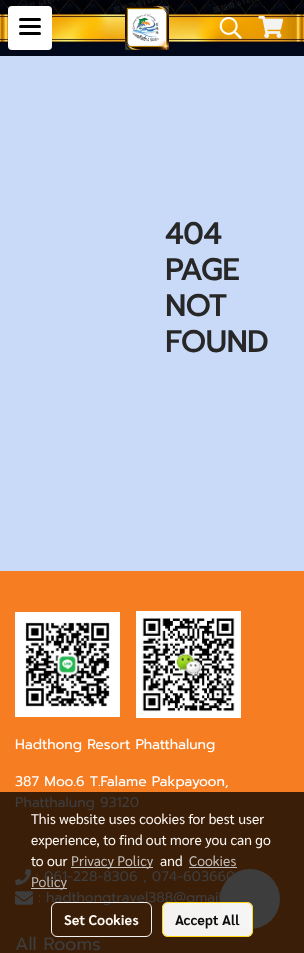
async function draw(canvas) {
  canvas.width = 304;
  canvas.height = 953;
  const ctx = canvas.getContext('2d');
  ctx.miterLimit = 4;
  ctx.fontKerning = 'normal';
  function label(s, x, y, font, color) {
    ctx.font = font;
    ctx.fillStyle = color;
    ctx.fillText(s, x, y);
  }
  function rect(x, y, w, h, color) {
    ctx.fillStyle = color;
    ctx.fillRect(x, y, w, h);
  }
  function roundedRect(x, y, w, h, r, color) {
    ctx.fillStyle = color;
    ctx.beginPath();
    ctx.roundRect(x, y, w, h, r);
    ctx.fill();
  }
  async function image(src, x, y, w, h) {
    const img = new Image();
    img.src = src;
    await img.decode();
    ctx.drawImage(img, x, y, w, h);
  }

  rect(0, 0, 304, 953, '#c9daf8');
  await image('assets/img1.png', 0, 0, 304, 56);
  roundedRect(8, 6, 44, 44, 4, '#fff');
  roundedRect(19, 25, 22, 3, 1.5, '#000');
  roundedRect(19, 18, 22, 3, 1.5, '#000');
  roundedRect(19, 32, 22, 3, 1.5, '#000');
  await image('assets/img2.png', 125, 6, 44, 44);
  await image('assets/img3.png', 219, 17, 23, 22);
  await image('assets/img4.png', 258, 16, 26, 22);
  label('404', 165, 244, 'bold 30px Prompt', '#272727');
  label('PAGE', 165, 280, 'bold 30px Prompt', '#272727');
  label('NOT', 165, 316, 'bold 30px Prompt', '#272727');
  label('FOUND', 165, 352, 'bold 30px Prompt', '#272727');
  rect(0, 571, 304, 221, '#f67d22');
  rect(0, 792, 304, 161, '#3b1e08');
  await image('assets/img5.png', 15, 612, 105, 105);
  await image('assets/img6.png', 136, 611, 105, 107);
  label('Hadthong Resort Phatthalung', 15, 749, '14px Prompt', '#fff');
  label('387 Moo.6 T.Falame Pakpayoon,', 15, 786, '14px Prompt', '#fff');
  label('Phatthalung 93120', 15, 807, '14px Prompt', '#3d3d3d');
  await image('assets/img7.png', 15, 869, 16, 16);
  label(': 061-228-8306 , 074-603660', 36, 881, '14px Prompt', '#3d3d3d');
  await image('assets/img8.png', 15, 891, 18, 14);
  label(': hadthongtravel388@gmail', 38, 902, '14px Prompt', '#3d3d3d');
  label('All Rooms', 15, 950, '18px Prompt', '#3d3d3d');
  label('This website uses cookies for best user', 31, 824, '14px Sarabun', '#fff9f4');
  label('experience, to find out more you can go', 31, 845, '14px Sarabun', '#fff9f4');
  label('to our', 31, 866, '14px Sarabun', '#fff9f4');
  rect(71, 867, 82, 1, '#c5bfba');
  label('Privacy Policy', 71, 866, '14px Sarabun', '#c5bfba');
  label('and', 160, 866, '14px Sarabun', '#fff9f4');
  label('Cookies', 189, 866, '14px Sarabun', '#c5bfba');
  rect(189, 867, 48, 1, '#bbbab9');
  rect(31, 888, 36, 1, '#c5bfba');
  label('Policy', 31, 887, '14px Sarabun', '#bbbab9');
  ctx.beginPath();
  ctx.roundRect(51.5, 902.5, 100, 34, 5.5);
  ctx.strokeStyle = '#fffffff2';
  ctx.stroke();
  label('Set Cookies', 64, 925, 'bold 14px Sarabun', '#fff9f4');
  ctx.fillStyle = '#3d3d3d';
  ctx.beginPath();
  ctx.arc(250, 899, 30, 0, 2 * Math.PI);
  ctx.fill();
  roundedRect(162, 902, 91, 35, 6, '#fffffff2');
  ctx.beginPath();
  ctx.roundRect(162.5, 902.5, 90, 34, 5.5);
  ctx.strokeStyle = '#ffd203f2';
  ctx.stroke();
  label('Accept All', 175, 925, 'bold 14px Sarabun', '#0c0c0c');
}

draw(document.querySelector('canvas'));
